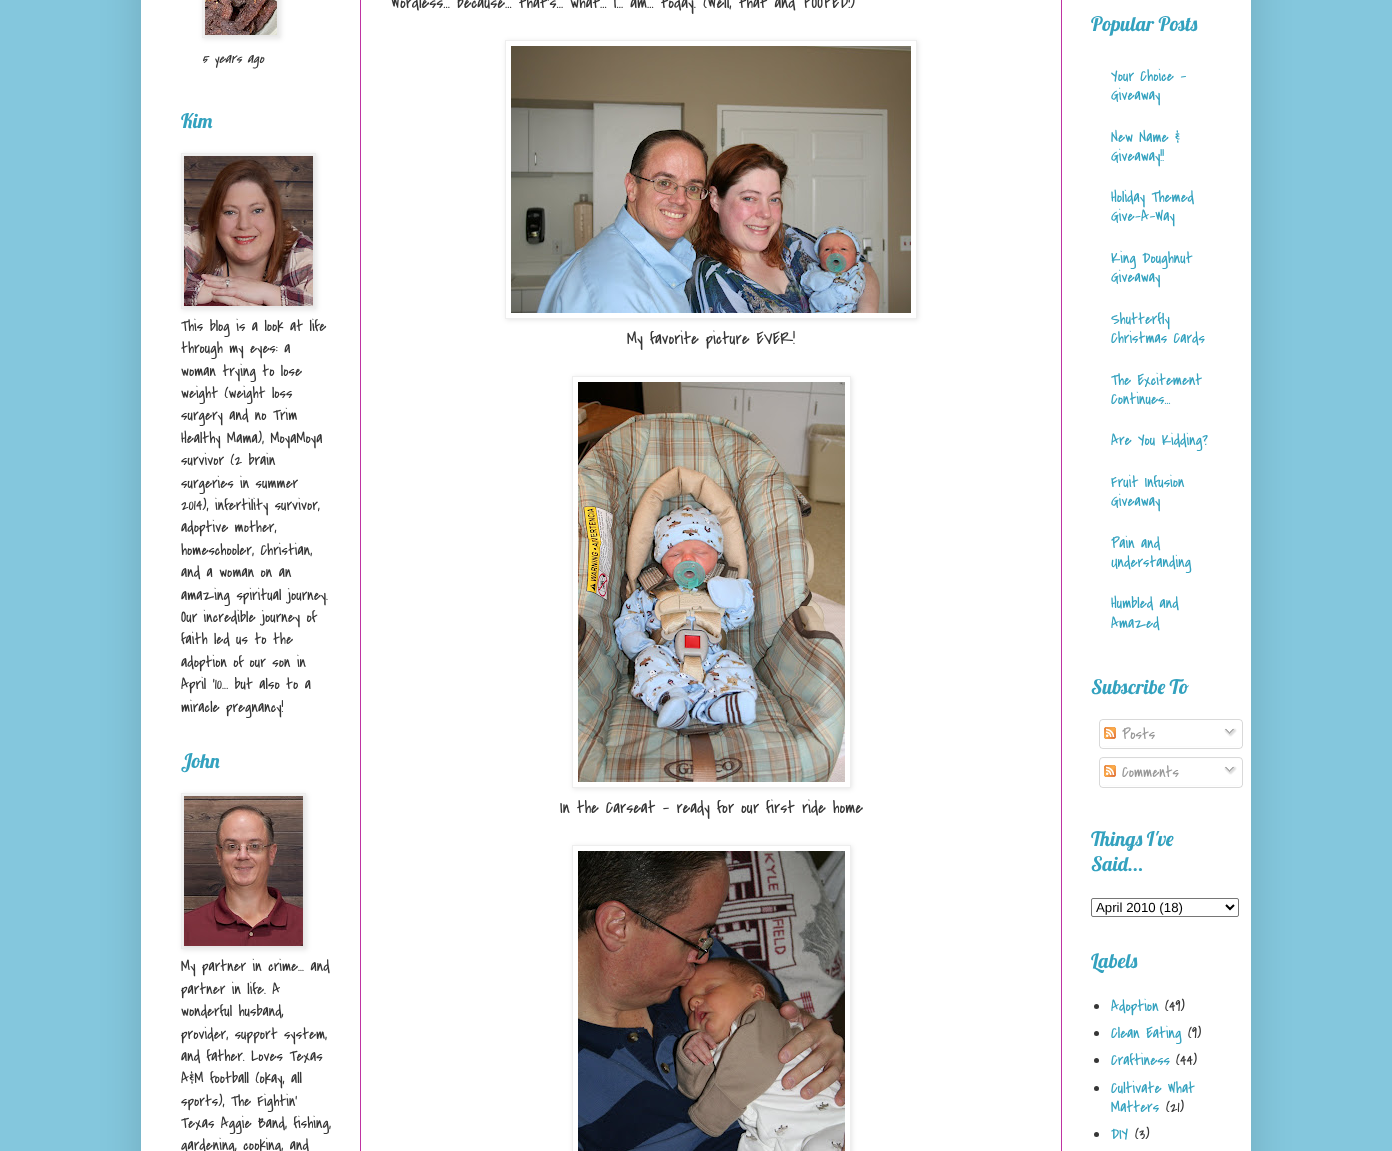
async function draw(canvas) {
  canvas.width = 1392;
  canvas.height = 1151;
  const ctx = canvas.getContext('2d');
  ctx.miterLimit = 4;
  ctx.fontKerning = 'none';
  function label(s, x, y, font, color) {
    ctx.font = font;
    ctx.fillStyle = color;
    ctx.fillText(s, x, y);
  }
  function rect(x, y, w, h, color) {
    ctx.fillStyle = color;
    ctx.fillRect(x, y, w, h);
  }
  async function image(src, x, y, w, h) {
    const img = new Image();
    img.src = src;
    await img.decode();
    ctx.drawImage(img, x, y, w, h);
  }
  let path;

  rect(0, 0, 1392, 1151, '#84c7dd');
  ctx.fillStyle = '#00000026';
  ctx.filter = 'blur(20px)';
  ctx.beginPath();
  ctx.rect(141, -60, 1110, 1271);
  ctx.fill();
  ctx.filter = 'none';
  rect(141, 0, 1110, 1151, '#fff');
  ctx.fillStyle = '#0000001a';
  ctx.filter = 'blur(2.5px)';
  ctx.beginPath();
  ctx.rect(203, -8, 78, 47);
  ctx.fill();
  ctx.filter = 'none';
  ctx.strokeStyle = '#eee';
  ctx.strokeRect(202.5, -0.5, 77, 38);
  await image('assets/img1.png', 205, 0, 72, 35);
  label('5 years ago', 202, 63, 'italic 14.5px Covered By Your Grace', '#363636');
  label('Kim', 181, 128, '20px Lobster', '#34a2bf');
  ctx.fillStyle = '#0000001a';
  ctx.filter = 'blur(2.5px)';
  ctx.beginPath();
  ctx.rect(182, 154, 135, 156);
  ctx.fill();
  ctx.filter = 'none';
  ctx.strokeRect(181.5, 153.5, 134, 155);
  await image('assets/img2.png', 184, 156, 129, 150);
  label('This blog is a look at life', 181, 331, '16px Covered By Your Grace', '#363636');
  label('through my eyes: a', 181, 353, '16px Covered By Your Grace', '#363636');
  label('woman trying to lose', 181, 376, '16px Covered By Your Grace', '#363636');
  label('weight (weight loss', 181, 398, '16px Covered By Your Grace', '#363636');
  label('surgery and no Trim', 181, 420, '16px Covered By Your Grace', '#363636');
  label('Healthy Mama), MoyaMoya', 181, 443, '16px Covered By Your Grace', '#363636');
  label('survivor (2 brain', 181, 465, '16px Covered By Your Grace', '#363636');
  label('surgeries in summer', 181, 488, '16px Covered By Your Grace', '#363636');
  label('2014), infertility survivor,', 181, 510, '16px Covered By Your Grace', '#363636');
  label('adoptive mother,', 181, 532, '16px Covered By Your Grace', '#363636');
  label('homeschooler, Christian,', 181, 555, '16px Covered By Your Grace', '#363636');
  label('and a woman on an', 181, 577, '16px Covered By Your Grace', '#363636');
  label('amazing spiritual journey.', 181, 600, '16px Covered By Your Grace', '#363636');
  label('Our incredible journey of', 181, 622, '16px Covered By Your Grace', '#363636');
  label('faith led us to the', 181, 644, '16px Covered By Your Grace', '#363636');
  label('adoption of our son in', 181, 667, '16px Covered By Your Grace', '#363636');
  label('April \'10... but also to a', 181, 689, '16px Covered By Your Grace', '#363636');
  label('miracle pregnancy!', 181, 712, '16px Covered By Your Grace', '#363636');
  label('John', 181, 768, '20px Lobster', '#34a2bf');
  ctx.fillStyle = '#0000001a';
  ctx.filter = 'blur(2.5px)';
  ctx.beginPath();
  ctx.rect(182, 794, 125, 156);
  ctx.fill();
  ctx.filter = 'none';
  ctx.strokeRect(181.5, 793.5, 124, 155);
  await image('assets/img3.png', 184, 796, 119, 150);
  label('My partner in crime... and', 181, 971, '16px Covered By Your Grace', '#363636');
  label('partner in life. A', 181, 994, '16px Covered By Your Grace', '#363636');
  label('wonderful husband,', 181, 1016, '16px Covered By Your Grace', '#363636');
  label('provider, support system,', 181, 1039, '16px Covered By Your Grace', '#363636');
  label('and father. Loves Texas', 181, 1061, '16px Covered By Your Grace', '#363636');
  label('A&M football (okay, all', 181, 1083, '16px Covered By Your Grace', '#363636');
  label('sports), The Fightin\'', 181, 1106, '16px Covered By Your Grace', '#363636');
  label('Texas Aggie Band, fishing,', 181, 1128, '16px Covered By Your Grace', '#363636');
  label('gardening, cooking, and', 181, 1150, '16px Covered By Your Grace', '#363636');
  label('Wordless... because... that\'s... what... I... am... today. (Well, that and POOPED!)', 391, 8, '17.6px Covered By Your Grace', '#363636');
  ctx.save();
  path = new Path2D('M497 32H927V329H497ZM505 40H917V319H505Z');
  ctx.clip(path, 'evenodd');
  ctx.fillStyle = '#0000001a';
  ctx.filter = 'blur(2.5px)';
  ctx.beginPath();
  ctx.rect(506, 41, 412, 279);
  ctx.fill();
  ctx.filter = 'none';
  ctx.restore();
  ctx.strokeRect(505.5, 40.5, 411, 278);
  await image('assets/img4.png', 511, 46, 400, 267);
  label('My favorite picture EVER!', 627, 344, '17.6px Covered By Your Grace', '#363636');
  ctx.save();
  path = new Path2D('M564 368H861V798H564ZM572 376H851V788H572Z');
  ctx.clip(path, 'evenodd');
  ctx.fillStyle = '#0000001a';
  ctx.filter = 'blur(2.5px)';
  ctx.beginPath();
  ctx.rect(573, 377, 279, 412);
  ctx.fill();
  ctx.filter = 'none';
  ctx.restore();
  ctx.strokeRect(572.5, 376.5, 278, 411);
  await image('assets/img5.png', 578, 382, 267, 400);
  label('In the Carseat - ready for our first ride home', 560, 813, '17.6px Covered By Your Grace', '#363636');
  ctx.save();
  path = new Path2D('M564 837H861V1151H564ZM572 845H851V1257H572Z');
  ctx.clip(path, 'evenodd');
  ctx.fillStyle = '#0000001a';
  ctx.filter = 'blur(2.5px)';
  ctx.beginPath();
  ctx.rect(573, 846, 279, 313);
  ctx.fill();
  ctx.filter = 'none';
  ctx.restore();
  ctx.strokeRect(572.5, 845.5, 278, 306);
  await image('assets/img6.png', 578, 851, 267, 300);
  label('Popular Posts', 1091, 31, '20px Lobster', '#34a2bf');
  label('Your Choice -', 1111, 81, '16px Covered By Your Grace', '#34a2bf');
  label('Giveaway', 1111, 100, '16px Covered By Your Grace', '#34a2bf');
  label('New Name &', 1111, 142, '16px Covered By Your Grace', '#34a2bf');
  label('Giveaway!!', 1111, 161, '16px Covered By Your Grace', '#34a2bf');
  label('Holiday Themed', 1111, 202, '16px Covered By Your Grace', '#34a2bf');
  label('Give-A-Way', 1111, 221, '16px Covered By Your Grace', '#34a2bf');
  label('King Doughnut', 1111, 263, '16px Covered By Your Grace', '#34a2bf');
  label('Giveaway', 1111, 282, '16px Covered By Your Grace', '#34a2bf');
  label('Shutterfly', 1111, 324, '16px Covered By Your Grace', '#34a2bf');
  label('Christmas Cards', 1111, 343, '16px Covered By Your Grace', '#34a2bf');
  label('The Excitement', 1111, 385, '16px Covered By Your Grace', '#34a2bf');
  label('Continues...', 1111, 404, '16px Covered By Your Grace', '#34a2bf');
  label('Are You Kidding?', 1111, 445, '16px Covered By Your Grace', '#34a2bf');
  label('Fruit Infusion', 1111, 487, '16px Covered By Your Grace', '#34a2bf');
  label('Giveaway', 1111, 506, '16px Covered By Your Grace', '#34a2bf');
  label('Pain and', 1111, 548, '16px Covered By Your Grace', '#34a2bf');
  label('Understanding', 1111, 567, '16px Covered By Your Grace', '#34a2bf');
  label('Humbled and', 1111, 608, '16px Covered By Your Grace', '#34a2bf');
  label('Amazed', 1111, 628, '16px Covered By Your Grace', '#34a2bf');
  label('Subscribe To', 1091, 694, '20px Lobster', '#34a2bf');
  await image('assets/img7.png', 1099, 719, 144, 27);
  await image('assets/img8.png', 1104, 727, 12, 12);
  label('Posts', 1122, 739, '16px Covered By Your Grace', '#999');
  await image('assets/img9.png', 1224, 728, 13, 9);
  await image('assets/img10.png', 1099, 746, 144, 3);
  await image('assets/img11.png', 1099, 757, 144, 28);
  await image('assets/img8.png', 1104, 765, 12, 12);
  label('Comments', 1122, 777, '16px Covered By Your Grace', '#999');
  await image('assets/img9.png', 1224, 766, 13, 9);
  await image('assets/img10.png', 1099, 785, 144, 3);
  label('Things I\'ve', 1091, 846, '20px Lobster', '#34a2bf');
  label('Said...', 1091, 871, '20px Lobster', '#34a2bf');
  ctx.beginPath();
  ctx.roundRect(1091.5, 898.5, 147, 18, 1.5);
  ctx.strokeStyle = '#767676';
  ctx.stroke();
  path = new Path2D('M1226 905L1230 909L1234 905');
  ctx.strokeStyle = '#000';
  ctx.lineWidth = 2;
  ctx.stroke(path);
  label('April 2010 (18)', 1096, 912, '13.25px Liberation Sans', '#000');
  label('Labels', 1091, 968, '20px Lobster', '#34a2bf');
  ctx.fillStyle = '#363636';
  ctx.beginPath();
  ctx.arc(1096.5, 1006.5, 2.5, 0, 2 * Math.PI);
  ctx.fill();
  label('Adoption', 1111, 1011, '16px Covered By Your Grace', '#34a2bf');
  label('(49)', 1165, 1011, '16px Covered By Your Grace', '#363636');
  ctx.beginPath();
  ctx.arc(1096.5, 1033.5, 2.5, 0, 2 * Math.PI);
  ctx.fill();
  label('Clean Eating', 1111, 1038, '16px Covered By Your Grace', '#34a2bf');
  label('(9)', 1188, 1038, '16px Covered By Your Grace', '#363636');
  ctx.beginPath();
  ctx.arc(1096.5, 1060.5, 2.5, 0, 2 * Math.PI);
  ctx.fill();
  label('Craftiness', 1111, 1065, '16px Covered By Your Grace', '#34a2bf');
  label('(44)', 1176, 1065, '16px Covered By Your Grace', '#363636');
  ctx.beginPath();
  ctx.arc(1096.5, 1088.5, 2.5, 0, 2 * Math.PI);
  ctx.fill();
  label('Cultivate What', 1111, 1093, '16px Covered By Your Grace', '#34a2bf');
  label('Matters', 1111, 1112, '16px Covered By Your Grace', '#34a2bf');
  label('(21)', 1166, 1112, '16px Covered By Your Grace', '#363636');
  ctx.beginPath();
  ctx.arc(1096.5, 1134.5, 2.5, 0, 2 * Math.PI);
  ctx.fill();
  label('DIY', 1111, 1139, '16px Covered By Your Grace', '#34a2bf');
  label('(3)', 1135, 1139, '16px Covered By Your Grace', '#363636');
  rect(360, 0, 1, 1151, '#bf33a2');
  rect(1061, 0, 1, 1151, '#bf33a2');
}

draw(document.querySelector('canvas'));
